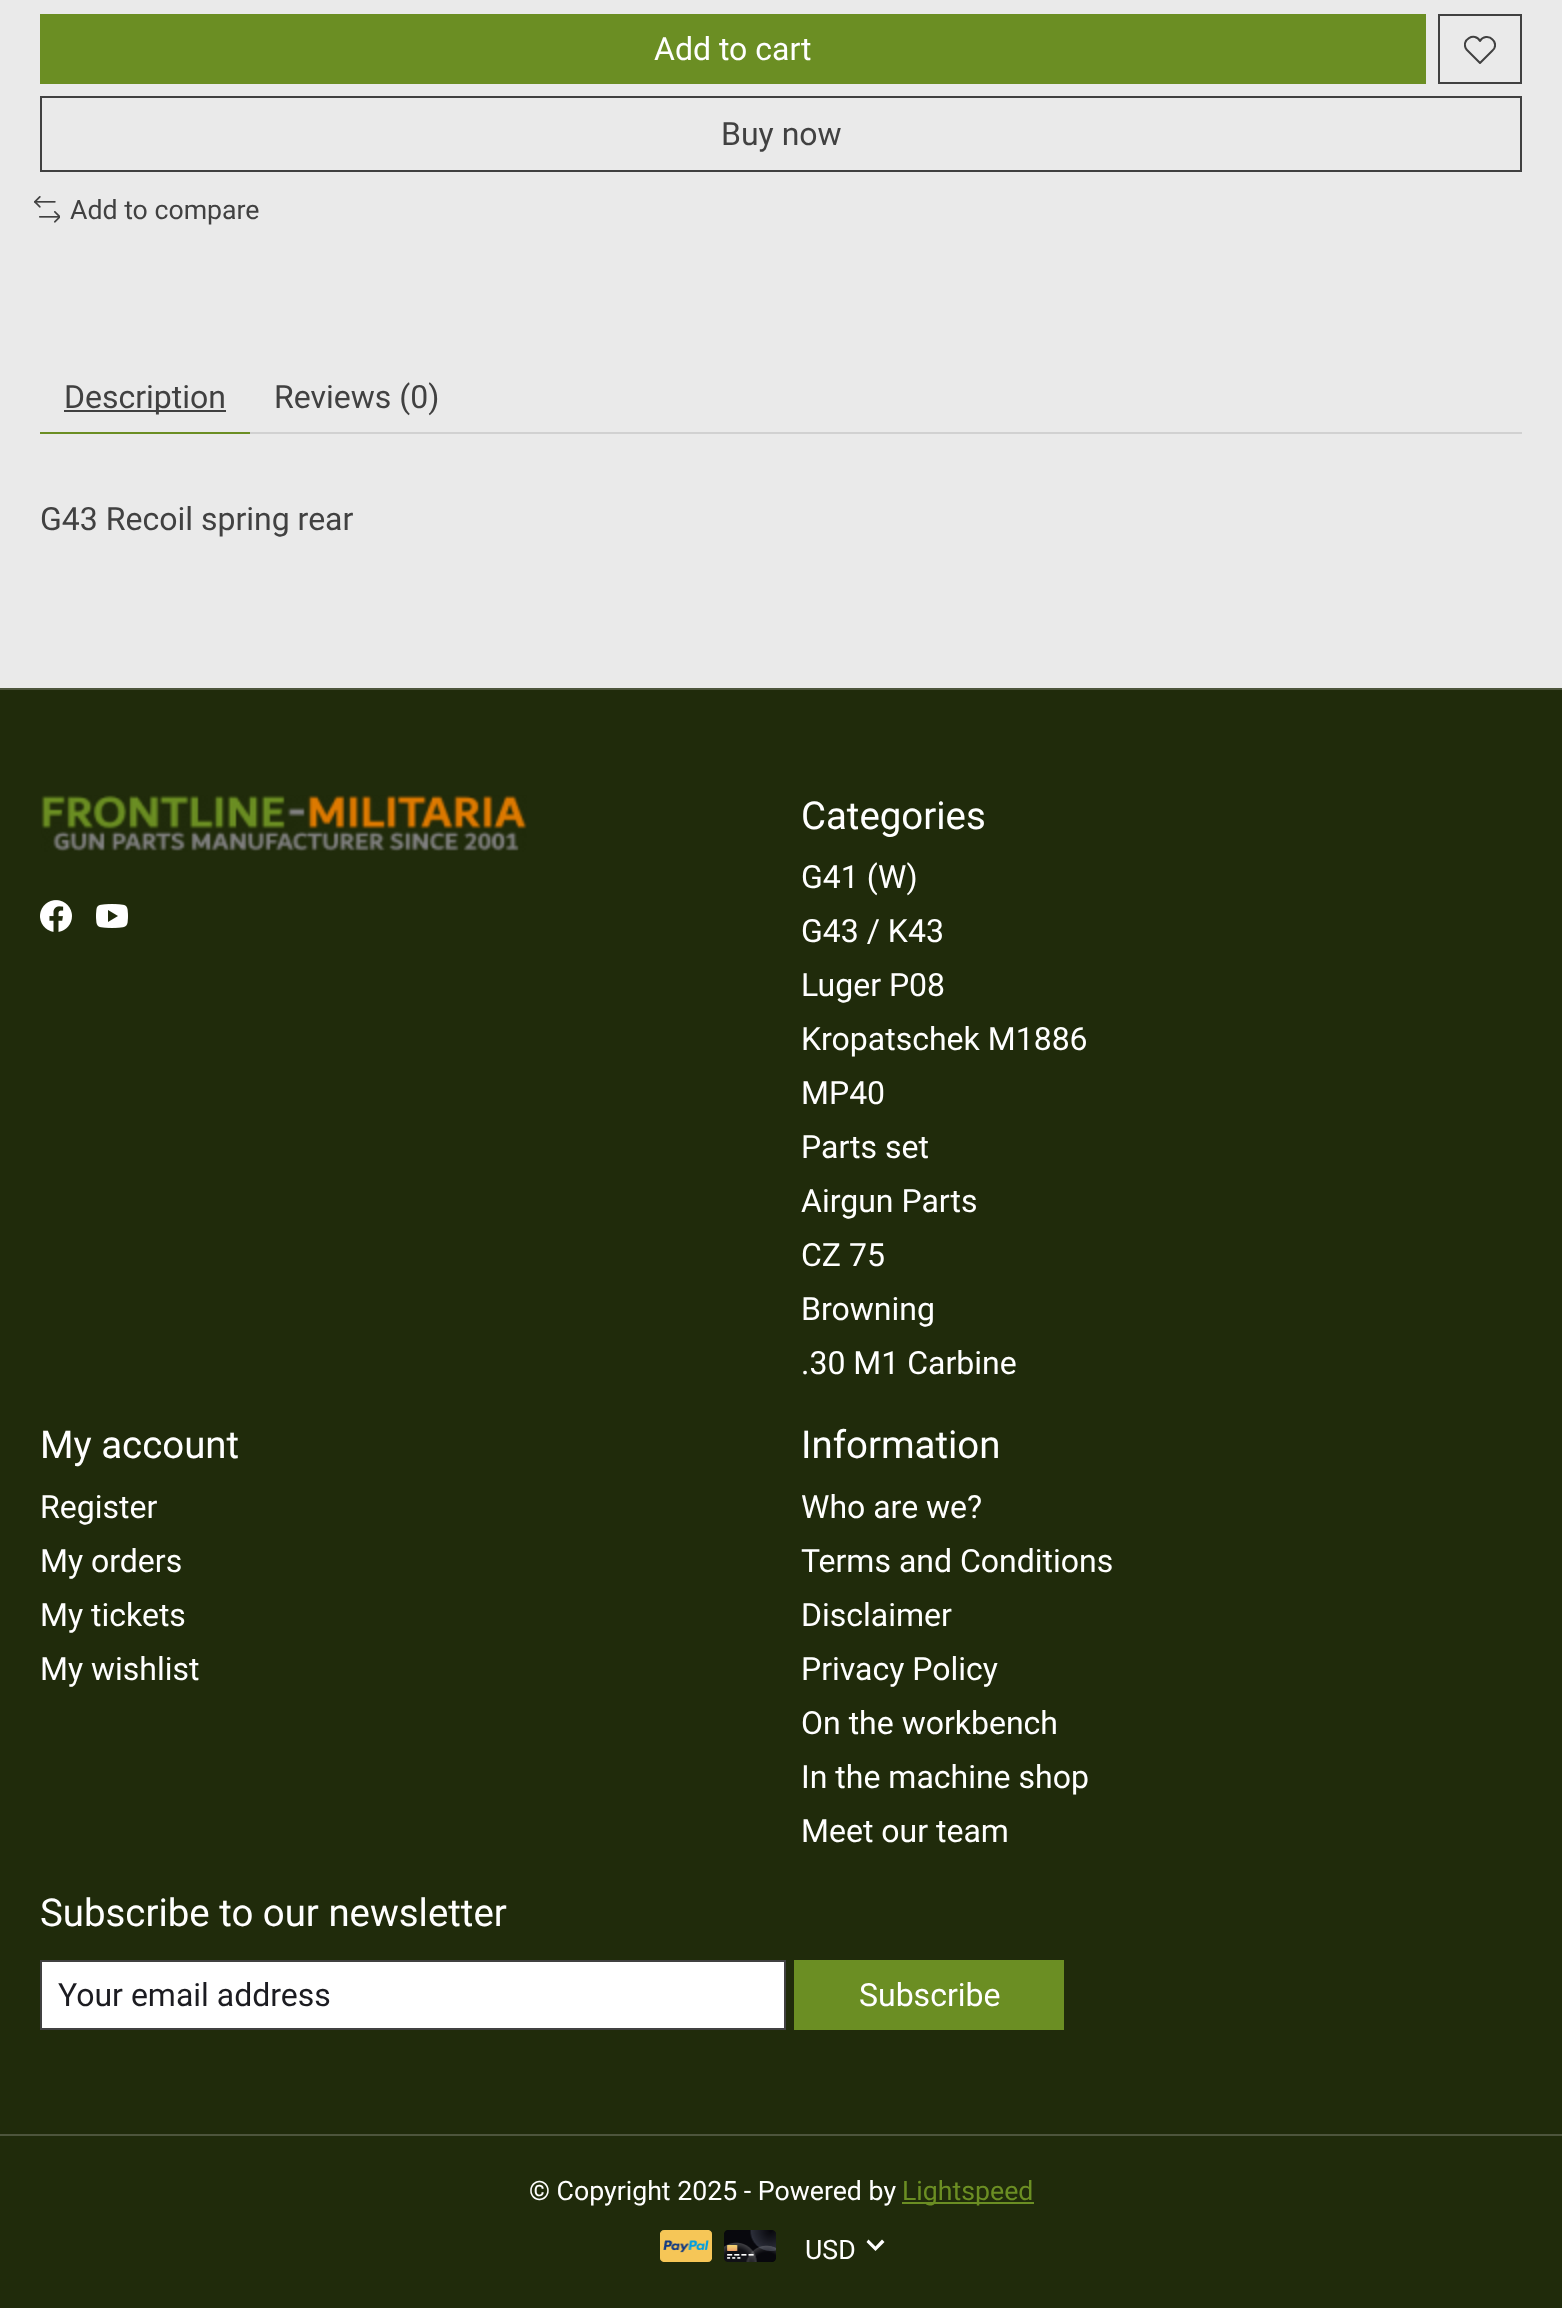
async function draw(canvas) {
  canvas.width = 1562;
  canvas.height = 2308;
  const ctx = canvas.getContext('2d');
  ctx.miterLimit = 4;
  ctx.fontKerning = 'normal';
  function label(s, x, y, font, color) {
    ctx.font = font;
    ctx.fillStyle = color;
    ctx.fillText(s, x, y);
  }
  function rect(x, y, w, h, color) {
    ctx.fillStyle = color;
    ctx.fillRect(x, y, w, h);
  }
  async function image(src, x, y, w, h) {
    const img = new Image();
    img.src = src;
    await img.decode();
    ctx.drawImage(img, x, y, w, h);
  }
  let path;

  rect(0, 0, 1562, 2308, '#eaeaea');
  rect(40, 14, 1386, 70, '#6b8e23');
  label('Add to cart', 654, 60, '32px Roboto', '#fff');
  ctx.strokeStyle = '#414141';
  ctx.lineWidth = 2;
  ctx.strokeRect(1439, 15, 82, 68);
  ctx.save();
  ctx.beginPath();
  ctx.rect(1464, 34, 32, 32);
  ctx.clip();
  path = new Path2D('M1492.5 39.5C1489 35.5 1482.5 36.5 1480 41C1475 31.5 1460 40 1466.5 49.5L1480 63L1492.5 50.5C1496 47.5 1496 42.5 1492.5 39.5Z');
  ctx.lineCap = 'round';
  ctx.lineJoin = 'round';
  ctx.stroke(path);
  ctx.restore();
  ctx.strokeRect(41, 97, 1480, 74);
  label('Buy now', 721, 145, '32px Roboto', '#414141');
  await image('assets/img1.png', 34, 196, 26, 27);
  label('Add to compare', 70, 219, '26.7px Roboto', '#414141');
  rect(40, 432, 210, 2, '#6b8e23');
  rect(64, 410, 162, 2, '#414141');
  label('Description', 64, 408, '32px Roboto', '#414141');
  label('Reviews (0)', 274, 408, '32px Roboto', '#414141');
  rect(250, 432, 1272, 2, '#d1d1d1');
  label('G43 Recoil spring rear', 40, 530, '32px Roboto', '#414141');
  rect(0, 690, 1562, 1618, '#202b0b');
  rect(0, 688, 1562, 2, '#4d553c');
  await image('assets/img2.png', 41, 795, 486, 57);
  await image('assets/img3.png', 40, 900, 32, 32);
  await image('assets/img4.png', 96, 904, 32, 24);
  label('Categories', 801, 829, '38.4px Roboto', '#fff');
  label('G41 (W)', 801, 888, '32px Roboto', '#fff');
  label('G43 / K43', 801, 942, '32px Roboto', '#fff');
  label('Luger P08', 801, 996, '32px Roboto', '#fff');
  label('Kropatschek M1886', 801, 1050, '32px Roboto', '#fff');
  label('MP40', 801, 1104, '32px Roboto', '#fff');
  label('Parts set', 801, 1158, '32px Roboto', '#fff');
  label('Airgun Parts', 801, 1212, '32px Roboto', '#fff');
  label('CZ 75', 801, 1266, '32px Roboto', '#fff');
  label('Browning', 801, 1320, '32px Roboto', '#fff');
  label('.30 M1 Carbine', 801, 1374, '32px Roboto', '#fff');
  label('My account', 40, 1458, '38.4px Roboto', '#fff');
  label('Register', 40, 1518, '32px Roboto', '#fff');
  label('My orders', 40, 1572, '32px Roboto', '#fff');
  label('My tickets', 40, 1626, '32px Roboto', '#fff');
  label('My wishlist', 40, 1680, '32px Roboto', '#fff');
  label('Information', 801, 1458, '38.4px Roboto', '#fff');
  label('Who are we?', 801, 1518, '32px Roboto', '#fff');
  label('Terms and Conditions', 801, 1572, '32px Roboto', '#fff');
  label('Disclaimer', 801, 1626, '32px Roboto', '#fff');
  label('Privacy Policy', 801, 1680, '32px Roboto', '#fff');
  label('On the workbench', 801, 1734, '32px Roboto', '#fff');
  label('In the machine shop', 801, 1788, '32px Roboto', '#fff');
  label('Meet our team', 801, 1842, '32px Roboto', '#fff');
  label('Subscribe to our newsletter', 40, 1926, '38.4px Roboto', '#fff');
  ctx.beginPath();
  ctx.rect(41, 1961, 744, 68);
  ctx.fill();
  ctx.stroke();
  label('Your email address', 58, 2006, '32px Roboto', '#1c1c21');
  rect(794, 1960, 270, 70, '#6b8e23');
  label('Subscribe', 859, 2006, '32px Roboto', '#fff');
  rect(0, 2134, 1562, 2, '#4d553c');
  label('© Copyright 2025 - Powered by', 529, 2200, '26.7px Roboto', '#fff');
  rect(902, 2202, 132, 2, '#6b8e23');
  label('Lightspeed', 902, 2200, '26.7px Roboto', '#6b8e23');
  await image('assets/img5.png', 660, 2230, 52, 32);
  await image('assets/img6.png', 724, 2230, 52, 32);
  label('USD', 805, 2259, '26.7px Roboto', '#fff');
  path = new Path2D('M875.5 2251L866.5 2242L868.5 2239.5L875.5 2246.5L882 2239.5L884.5 2242Z');
  ctx.fill(path);
}

draw(document.querySelector('canvas'));
